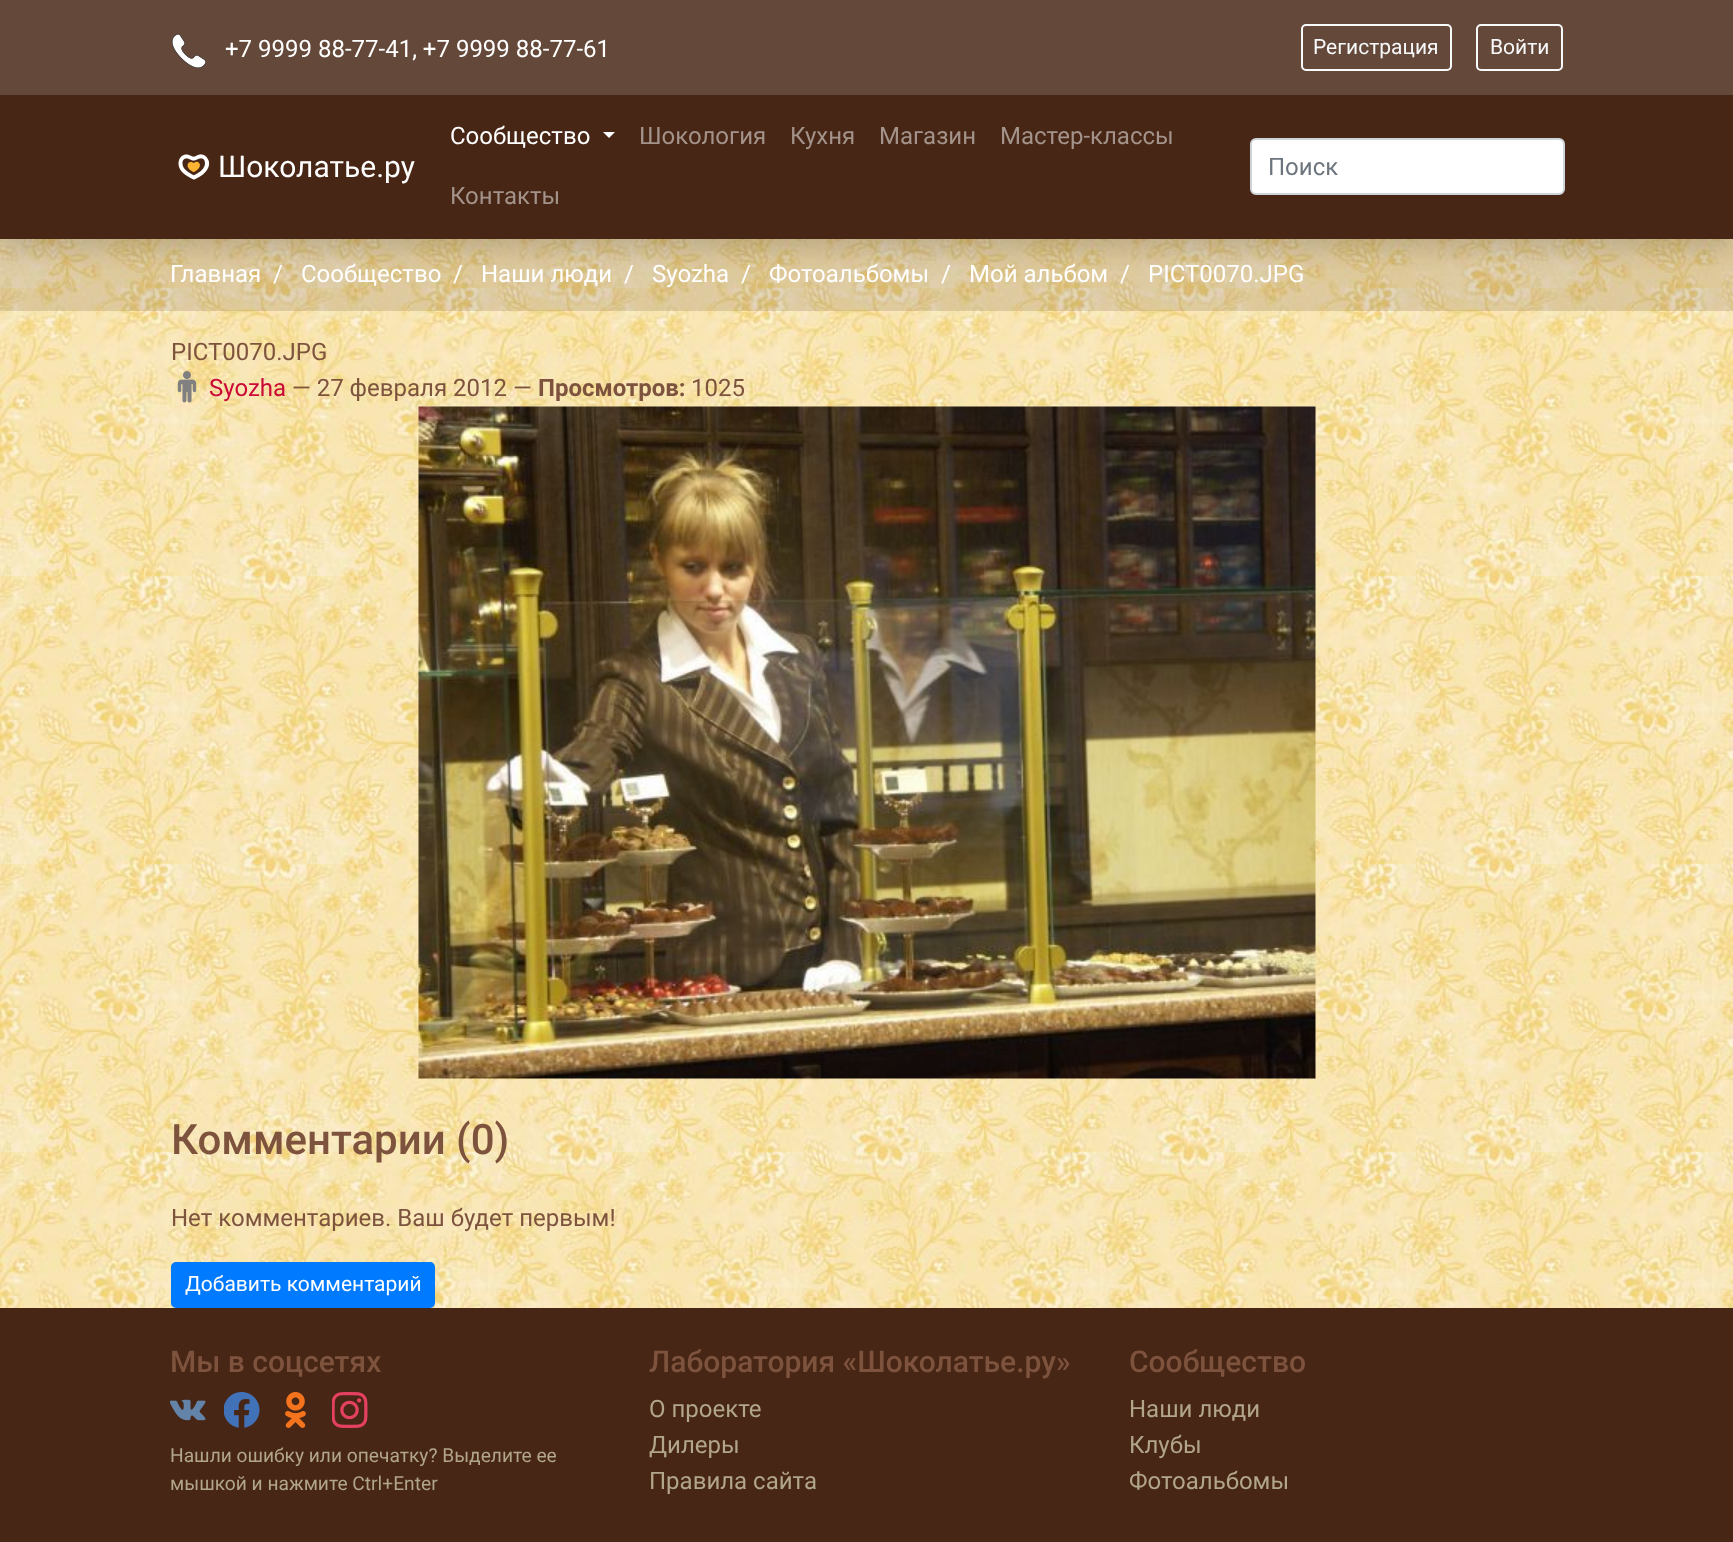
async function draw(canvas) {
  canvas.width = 1733;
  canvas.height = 1542;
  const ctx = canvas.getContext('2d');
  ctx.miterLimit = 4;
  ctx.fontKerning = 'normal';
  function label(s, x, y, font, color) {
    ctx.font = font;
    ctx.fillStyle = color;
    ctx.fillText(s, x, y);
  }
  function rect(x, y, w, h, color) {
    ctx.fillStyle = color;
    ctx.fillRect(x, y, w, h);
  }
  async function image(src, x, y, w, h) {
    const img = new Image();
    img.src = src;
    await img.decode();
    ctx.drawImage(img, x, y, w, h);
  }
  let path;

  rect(0, 0, 1733, 1542, '#fff');
  await image('assets/img1.png', 0, 239, 1733, 1069);
  ctx.fillStyle = '#00000026';
  ctx.filter = 'blur(12px)';
  ctx.beginPath();
  ctx.rect(0, 12, 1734, 239);
  ctx.fill();
  ctx.filter = 'none';
  rect(0, 95, 1733, 144, '#472615');
  rect(0, 0, 1733, 95, '#64493a');
  await image('assets/img2.png', 171, 33, 35, 36);
  label('+7 9999 88-77-41, +7 9999 88-77-61', 225, 57, '24px Roboto', '#fff');
  ctx.beginPath();
  ctx.roundRect(1302, 25, 149, 45, 4);
  ctx.strokeStyle = '#f8f9fa';
  ctx.lineWidth = 2;
  ctx.stroke();
  label('Регистрация', 1313, 54, '21px Roboto', '#f8f9fa');
  ctx.beginPath();
  ctx.roundRect(1477, 25, 85, 45, 4);
  ctx.stroke();
  label('Войти', 1490, 54, '21px Roboto', '#f8f9fa');
  await image('assets/img3.png', 178, 154, 32, 26);
  label('Шоколатье.ру', 218, 177, '30px Roboto', '#fff');
  label('Сообщество', 450, 144, '24px Roboto', '#fff');
  path = new Path2D('M603 132H615L609 138Z');
  ctx.fill(path);
  label('Шокология', 639, 144, '24px Roboto', '#a3938a');
  label('Кухня', 790, 144, '24px Roboto', '#a3938a');
  label('Магазин', 879, 144, '24px Roboto', '#a3938a');
  label('Мастер-классы', 1000, 144, '24px Roboto', '#a3938a');
  label('Контакты', 450, 204, '24px Roboto', '#a3938a');
  ctx.fillStyle = '#fff';
  ctx.beginPath();
  ctx.roundRect(1251, 139, 313, 55, 5);
  ctx.fill();
  ctx.strokeStyle = '#ced4da';
  ctx.stroke();
  label('Поиск', 1268, 175, '24px Roboto', '#6c757d');
  rect(0, 239, 1733, 72, '#47261526');
  label('Главная', 170, 282, '24px Roboto', '#fff');
  label('/', 273, 282, '24px Roboto', '#fff');
  label('Сообщество', 301, 282, '24px Roboto', '#fff');
  label('/', 453, 282, '24px Roboto', '#fff');
  label('Наши люди', 481, 282, '24px Roboto', '#fff');
  label('/', 624, 282, '24px Roboto', '#fff');
  label('Syozha', 652, 282, '24px Roboto', '#fff');
  label('/', 741, 282, '24px Roboto', '#fff');
  label('Фотоальбомы', 769, 282, '24px Roboto', '#fff');
  label('/', 941, 282, '24px Roboto', '#fff');
  label('Мой альбом', 969, 282, '24px Roboto', '#fff');
  label('/', 1120, 282, '24px Roboto', '#fff');
  label('PICT0070.JPG', 1148, 282, '24px Roboto', '#fff');
  label('PICT0070.JPG', 171, 360, '24px Roboto', '#7d533e');
  await image('assets/img4.png', 177, 371, 20, 32);
  label('Syozha', 209, 396, '24px Roboto', '#ca0938');
  label('— 27 февраля 2012 —', 292, 396, '24px Roboto', '#7d533e');
  label('Просмотров:', 538, 396, 'bold 24px Roboto', '#7d533e');
  label('1025', 691, 396, '24px Roboto', '#7d533e');
  await image('assets/img5.png', 418, 406, 898, 673);
  label('Комментарии (0)', 171, 1154, '500 42px Roboto', '#7d533e');
  label('Нет комментариев. Ваш будет первым!', 171, 1226, '24px Roboto', '#7d533e');
  ctx.fillStyle = '#007bff';
  ctx.beginPath();
  ctx.roundRect(172, 1263, 262, 44, 4);
  ctx.fill();
  ctx.strokeStyle = '#007bff';
  ctx.stroke();
  label('Добавить комментарий', 185, 1291, '21px Roboto', '#fff');
  rect(0, 1308, 1733, 234, '#472615');
  label('Мы в соцсетях', 170, 1372, '500 30px Roboto', '#7d533e');
  await image('assets/img6.png', 170, 1399, 36, 22);
  await image('assets/img7.png', 224, 1392, 36, 36);
  await image('assets/img8.png', 285, 1392, 21, 36);
  await image('assets/img9.png', 332, 1392, 36, 36);
  label('Нашли ошибку или опечатку? Выделите ее', 170, 1462, '19.2px Roboto', '#b1a58a');
  label('мышкой и нажмите Ctrl+Enter', 170, 1490, '19.2px Roboto', '#b1a58a');
  label('Лаборатория «Шоколатье.ру»', 649, 1372, '500 30px Roboto', '#7d533e');
  label('О проекте', 649, 1417, '24px Roboto', '#b1a58a');
  label('Дилеры', 649, 1453, '24px Roboto', '#b1a58a');
  label('Правила сайта', 649, 1489, '24px Roboto', '#b1a58a');
  label('Сообщество', 1129, 1372, '500 30px Roboto', '#7d533e');
  label('Наши люди', 1129, 1417, '24px Roboto', '#b1a58a');
  label('Клубы', 1129, 1453, '24px Roboto', '#b1a58a');
  label('Фотоальбомы', 1129, 1489, '24px Roboto', '#b1a58a');
}

draw(document.querySelector('canvas'));
